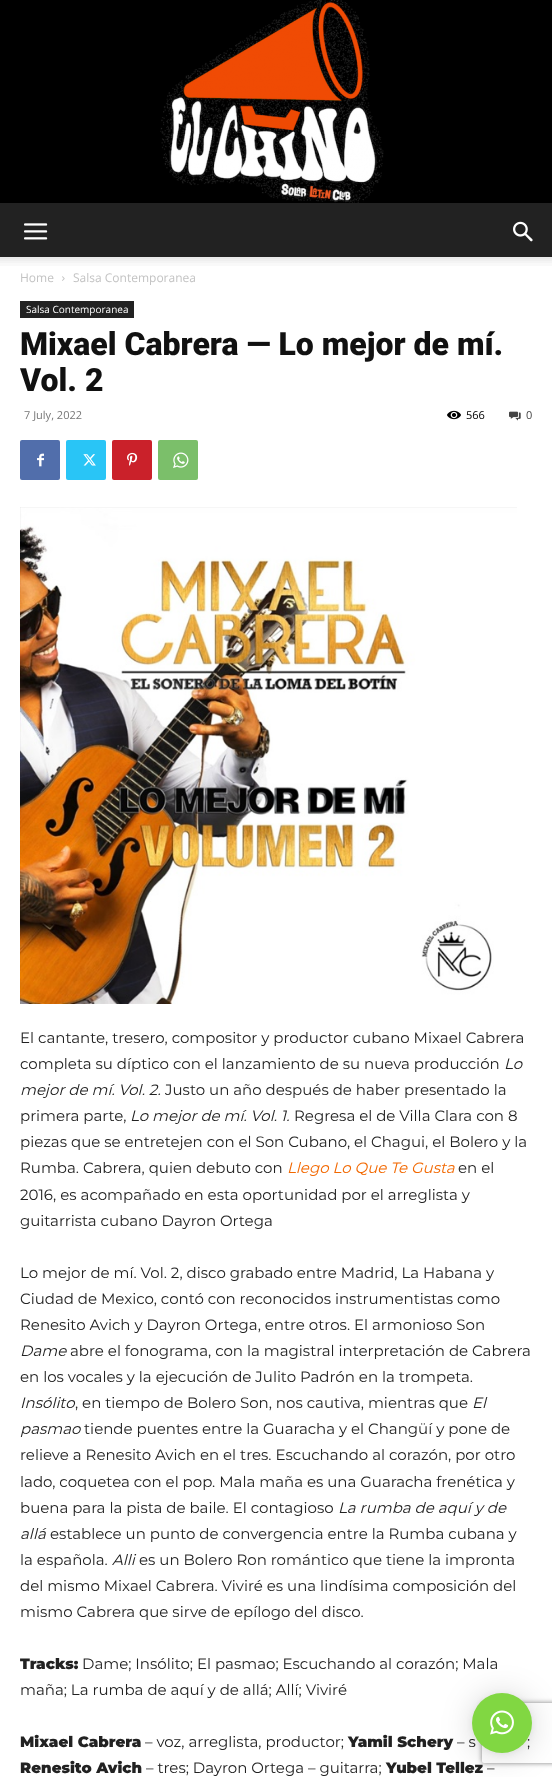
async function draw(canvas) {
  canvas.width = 552;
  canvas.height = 1777;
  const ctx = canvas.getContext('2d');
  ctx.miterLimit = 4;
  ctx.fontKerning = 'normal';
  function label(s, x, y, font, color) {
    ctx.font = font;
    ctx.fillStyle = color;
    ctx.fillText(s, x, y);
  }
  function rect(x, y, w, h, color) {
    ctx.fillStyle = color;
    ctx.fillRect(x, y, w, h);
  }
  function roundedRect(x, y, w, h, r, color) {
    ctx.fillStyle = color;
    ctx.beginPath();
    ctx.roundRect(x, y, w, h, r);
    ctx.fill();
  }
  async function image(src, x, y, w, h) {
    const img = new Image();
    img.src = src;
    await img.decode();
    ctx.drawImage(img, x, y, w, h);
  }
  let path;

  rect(0, 0, 552, 1777, '#fff');
  rect(0, 0, 552, 203, '#000');
  await image('assets/img1.png', 160, 0, 224, 203);
  rect(0, 203, 552, 54, '#222');
  await image('assets/img2.png', 24, 223, 24, 17);
  await image('assets/img3.png', 513, 221, 20, 21);
  await image('assets/img4.png', 0, 257, 552, 9);
  label('Home', 20, 282, '12px Open Sans', '#c3c3c3');
  await image('assets/img5.png', 62, 276, 3, 5);
  label('Salsa Contemporanea', 73, 282, '12px Open Sans', '#c3c3c3');
  rect(20, 301, 114, 17, '#222');
  label('Salsa Contemporanea', 26, 313, '10px Open Sans', '#fff');
  label('Mixael Cabrera — Lo mejor de mí.', 20, 355, '900 32px Roboto', '#111');
  label('Vol. 2', 20, 391, '900 32px Roboto', '#111');
  label('7 July, 2022', 24, 419, '11px Open Sans', '#767676');
  await image('assets/img6.png', 447, 410, 14, 10);
  label('566', 466, 419, '11px Open Sans', '#000');
  await image('assets/img7.png', 509, 411, 12, 10);
  label('0', 526, 419, '11px Open Sans', '#444');
  roundedRect(20, 440, 40, 40, 2, '#516eab');
  await image('assets/img8.png', 37, 453, 7, 14);
  roundedRect(66, 440, 40, 40, 2, '#29c5f6');
  await image('assets/img9.png', 83, 454, 13, 12);
  roundedRect(112, 440, 40, 40, 2, '#ca212a');
  await image('assets/img10.png', 127, 452, 11, 14);
  roundedRect(158, 440, 40, 40, 2, '#7bbf6a');
  await image('assets/img11.png', 173, 452, 16, 16);
  await image('assets/img12.png', 20, 507, 497, 497);
  label('El cantante, tresero, compositor y productor cubano Mixael Cabrera', 20, 1043, '15px Montserrat', '#222');
  label('completa su díptico con el lanzamiento de su nueva producción', 20, 1069, '15px Montserrat', '#222');
  label('Lo', 504, 1069, 'italic 15px Montserrat', '#222');
  label('mejor de mí. Vol. 2.', 20, 1095, 'italic 15px Montserrat', '#222');
  label('Justo un año después de haber presentado la', 165, 1095, '15px Montserrat', '#222');
  label('primera parte,', 20, 1121, '15px Montserrat', '#222');
  label('Lo mejor de mí. Vol. 1.', 130, 1121, 'italic 15px Montserrat', '#222');
  label('Regresa el de Villa Clara con 8', 294, 1121, '15px Montserrat', '#222');
  label('piezas que se entretejen con el Son Cubano, el Chagui, el Bolero y la', 20, 1147, '15px Montserrat', '#222');
  label('Rumba. Cabrera, quien debuto con', 20, 1173, '15px Montserrat', '#222');
  label('Llego Lo Que Te Gusta', 287, 1173, 'italic 15px Montserrat', '#f26800');
  label('en el', 458, 1173, '15px Montserrat', '#222');
  label('2016, es acompañado en esta oportunidad por el arreglista y', 20, 1200, '15px Montserrat', '#222');
  label('guitarrista cubano Dayron Ortega', 20, 1226, '15px Montserrat', '#222');
  label('Lo mejor de mí. Vol. 2, disco grabado entre Madrid, La Habana y', 20, 1278, '15px Montserrat', '#222');
  label('Ciudad de Mexico, contó con reconocidos instrumentistas como', 20, 1304, '15px Montserrat', '#222');
  label('Renesito Avich y Dayron Ortega, entre otros. El armonioso Son', 20, 1330, '15px Montserrat', '#222');
  label('Dame', 20, 1356, 'italic 15px Montserrat', '#222');
  label('abre el fonograma, con la magistral interpretación de Cabrera', 70, 1356, '15px Montserrat', '#222');
  label('en los vocales y la ejecución de Julito Padrón en la trompeta.', 20, 1382, '15px Montserrat', '#222');
  label('Insólito', 20, 1408, 'italic 15px Montserrat', '#222');
  label(', en tiempo de Bolero Son, nos cautiva, mientras que', 75, 1408, '15px Montserrat', '#222');
  label('El', 472, 1408, 'italic 15px Montserrat', '#222');
  label('pasmao', 20, 1434, 'italic 15px Montserrat', '#222');
  label('tiende puentes entre la Guaracha y el Changüí y pone de', 84, 1434, '15px Montserrat', '#222');
  label('relieve a Renesito Avich en el tres. Escuchando al corazón, por otro', 20, 1460, '15px Montserrat', '#222');
  label('lado, coquetea con el pop. Mala maña es una Guaracha frenética y', 20, 1487, '15px Montserrat', '#222');
  label('buena para la pista de baile. El contagioso', 20, 1513, '15px Montserrat', '#222');
  label('La rumba de aquí y de', 338, 1513, 'italic 15px Montserrat', '#222');
  label('allá', 20, 1539, 'italic 15px Montserrat', '#222');
  label('establece un punto de convergencia entre la Rumba cubana y', 50, 1539, '15px Montserrat', '#222');
  label('la española.', 20, 1565, '15px Montserrat', '#222');
  label('Alli', 112, 1565, 'italic 15px Montserrat', '#222');
  label('es un Bolero Ron romántico que tiene la impronta', 139, 1565, '15px Montserrat', '#222');
  label('del mismo Mixael Cabrera. Viviré es una lindísima composición del', 20, 1591, '15px Montserrat', '#222');
  label('mismo Cabrera que sirve de epílogo del disco.', 20, 1617, '15px Montserrat', '#222');
  label('Tracks:', 20, 1669, '900 15px Montserrat', '#222');
  label('Dame; Insólito; El pasmao; Escuchando al corazón; Mala', 82, 1669, '15px Montserrat', '#222');
  label('maña; La rumba de aquí y de allá; Allí; Viviré', 20, 1695, '15px Montserrat', '#222');
  label('Mixael Cabrera', 20, 1747, '900 15px Montserrat', '#222');
  label('– voz, arreglista, productor;', 145, 1747, '15px Montserrat', '#222');
  label('Yamil Schery', 348, 1747, '900 15px Montserrat', '#222');
  label('– s', 457, 1747, '15px Montserrat', '#222');
  label(';', 527, 1747, '15px Montserrat', '#222');
  label('Renesito Avich', 20, 1773, '900 15px Montserrat', '#222');
  label('– tres; Dayron Ortega – guitarra;', 146, 1773, '15px Montserrat', '#222');
  label('Yubel Tellez', 386, 1773, '900 15px Montserrat', '#222');
  label('–', 487, 1773, '15px Montserrat', '#222');
  ctx.fillStyle = '#00000029';
  ctx.filter = 'blur(16px)';
  ctx.beginPath();
  ctx.roundRect(472, 1695, 60, 60, 30);
  ctx.fill();
  ctx.filter = 'none';
  ctx.fillStyle = '#0000000f';
  ctx.filter = 'blur(3px)';
  ctx.beginPath();
  ctx.roundRect(472, 1694, 60, 60, 30);
  ctx.fill();
  ctx.filter = 'none';
  ctx.save();
  path = new Path2D('M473 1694H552V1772H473ZM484 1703H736C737 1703 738 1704 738 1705V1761C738 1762 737 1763 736 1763H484C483 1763 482 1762 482 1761V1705C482 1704 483 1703 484 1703Z');
  ctx.clip(path, 'evenodd');
  ctx.fillStyle = '#808080';
  ctx.filter = 'blur(2.5px)';
  ctx.beginPath();
  ctx.roundRect(482, 1703, 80, 60, 2);
  ctx.fill();
  ctx.filter = 'none';
  ctx.restore();
  ctx.fillStyle = '#81d742';
  ctx.beginPath();
  ctx.arc(502, 1723, 30, 0, 2 * Math.PI);
  ctx.fill();
  await image('assets/img13.png', 490, 1710, 24, 25);
}

draw(document.querySelector('canvas'));
